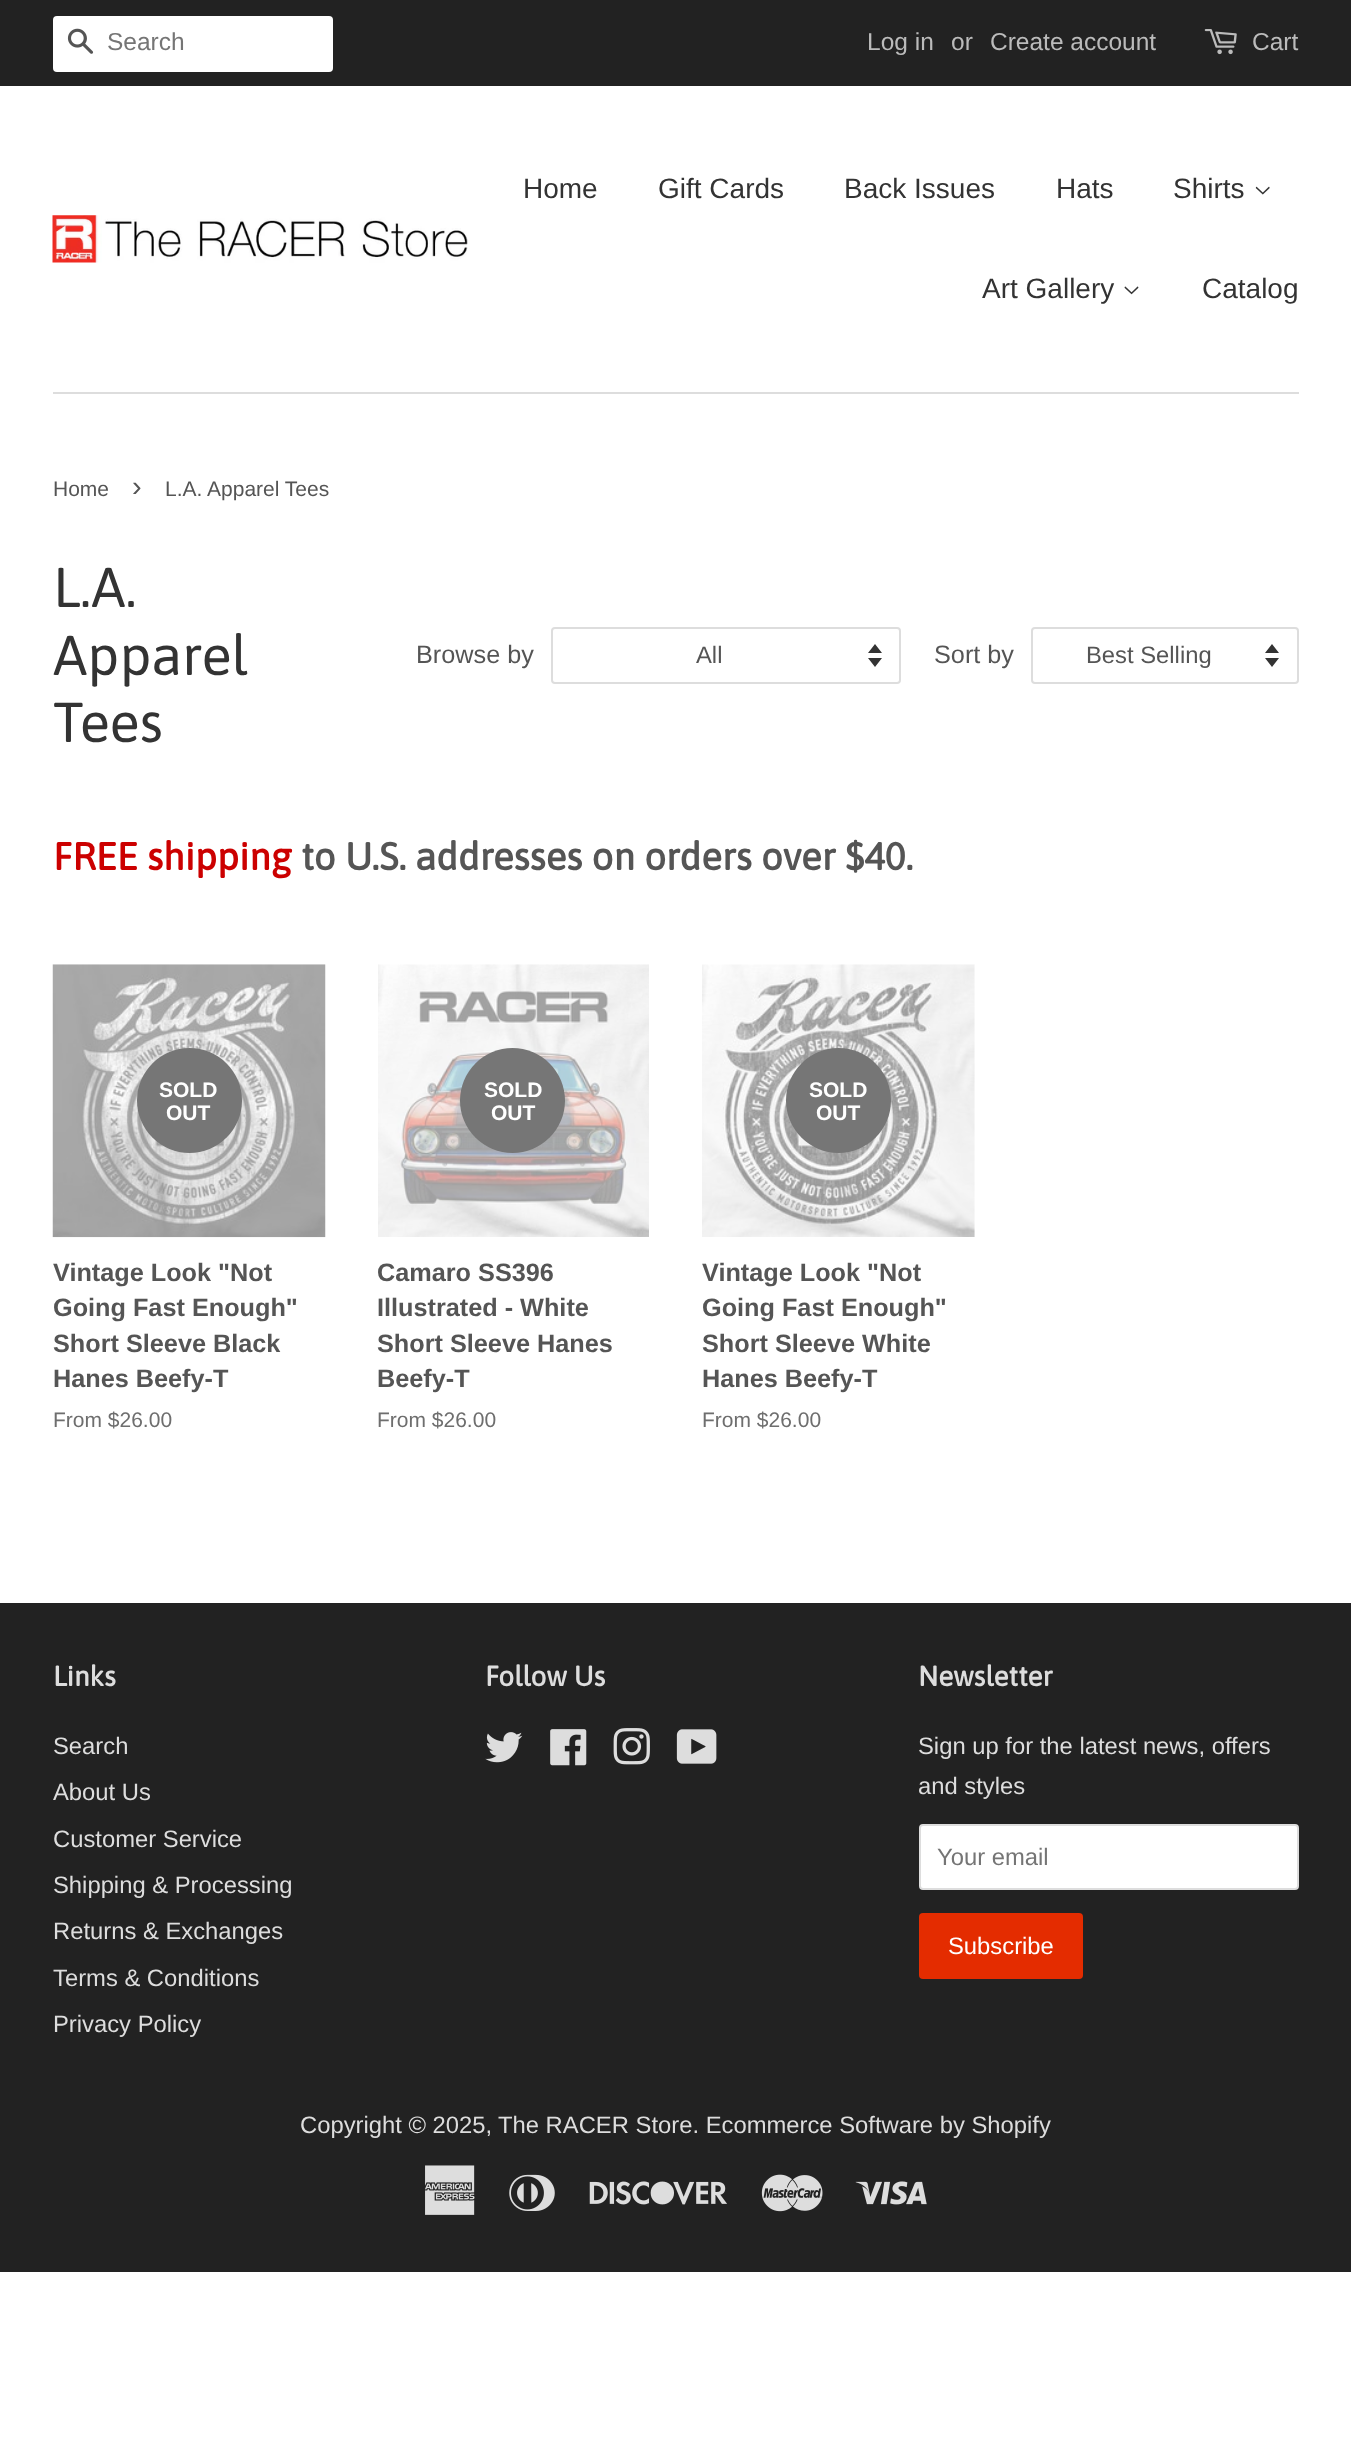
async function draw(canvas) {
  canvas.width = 1351;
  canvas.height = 2457;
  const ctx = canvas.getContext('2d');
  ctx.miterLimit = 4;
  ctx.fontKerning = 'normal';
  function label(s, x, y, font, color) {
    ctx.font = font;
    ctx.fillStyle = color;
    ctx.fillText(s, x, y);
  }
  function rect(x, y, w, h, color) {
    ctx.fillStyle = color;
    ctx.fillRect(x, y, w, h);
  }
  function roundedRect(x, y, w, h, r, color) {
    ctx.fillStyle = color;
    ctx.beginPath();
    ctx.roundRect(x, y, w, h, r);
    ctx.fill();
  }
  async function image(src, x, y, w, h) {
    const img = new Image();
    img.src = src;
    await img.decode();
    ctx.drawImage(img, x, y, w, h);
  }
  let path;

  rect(0, 0, 1351, 2457, '#fff');
  rect(0, 0, 1351, 86, '#222');
  roundedRect(53, 16, 280, 56, 4, '#fff');
  await image('assets/img1.png', 67, 28, 27, 26);
  label('Search', 107, 50, '24.5px Liberation Sans', '#757575');
  label('Log in', 867, 50, '24.5px Liberation Sans', '#bbb');
  label('or', 951, 50, '24.5px Liberation Sans', '#bbb');
  label('Create account', 990, 50, '24.5px Liberation Sans', '#bbb');
  await image('assets/img2.png', 1204, 29, 33, 26);
  label('Cart', 1252, 50, '24.5px Liberation Sans', '#bbb');
  rect(53, 392, 1246, 2, '#ddd');
  await image('assets/img3.png', 52, 215, 416, 48);
  label('Home', 523, 198, '28px Liberation Sans', '#333');
  label('Gift Cards', 658, 198, '28px Liberation Sans', '#333');
  label('Back Issues', 844, 198, '28px Liberation Sans', '#333');
  label('Hats', 1056, 198, '28px Liberation Sans', '#333');
  label('Shirts', 1173, 198, '28px Liberation Sans', '#333');
  await image('assets/img4.png', 1255, 186, 15, 9);
  label('Art Gallery', 982, 298, '28px Liberation Sans', '#333');
  await image('assets/img5.png', 1124, 286, 15, 9);
  label('Catalog', 1202, 298, '28px Liberation Sans', '#333');
  label('Home', 53, 496, '21px Liberation Sans', '#555');
  label('›', 132, 496, '29px Liberation Sans', '#555');
  label('L.A. Apparel Tees', 165, 496, '21px Liberation Sans', '#555');
  label('L.A.', 53, 607, '56px Asap', '#333');
  label('Apparel', 53, 675, '56px Asap', '#333');
  label('Tees', 53, 742, '56px Asap', '#333');
  label('Browse by', 416, 663, '25.25px Liberation Sans', '#555');
  ctx.fillStyle = '#333';
  path = new Path2D('M868 658L875 667L882 658ZM875 644L868 653H882Z');
  ctx.fill(path);
  ctx.beginPath();
  ctx.roundRect(552, 628, 348, 55, 3);
  ctx.strokeStyle = '#ddd';
  ctx.lineWidth = 2;
  ctx.stroke();
  label('All', 696, 663, '23.8px Liberation Sans', '#555');
  label('Sort by', 934, 663, '25.25px Liberation Sans', '#555');
  ctx.fillStyle = '#333';
  path = new Path2D('M1265 658L1272 667L1279 658ZM1272 644L1265 653H1279Z');
  ctx.fill(path);
  ctx.beginPath();
  ctx.roundRect(1032, 628, 266, 55, 3);
  ctx.stroke();
  label('Best Selling', 1086, 663, '23.8px Liberation Sans', '#555');
  label('FREE shipping', 53, 870, 'bold 38.5px Asap', '#c00');
  label('to U.S. addresses on orders over $40.', 301, 870, 'bold 38.5px Asap', '#555');
  await image('assets/img6.png', 52, 964, 274, 274);
  ctx.fillStyle = '#767676';
  ctx.beginPath();
  ctx.arc(189.5, 1100.5, 52.5, 0, 2 * Math.PI);
  ctx.fill();
  label('SOLD', 159, 1097, 'bold 21px Liberation Sans', '#fff');
  label('OUT', 166, 1120, 'bold 21px Liberation Sans', '#fff');
  label('Vintage Look "Not', 53, 1281, 'bold 25.25px Liberation Sans', '#555');
  label('Going Fast Enough"', 53, 1316, 'bold 25.25px Liberation Sans', '#555');
  label('Short Sleeve Black', 53, 1352, 'bold 25.25px Liberation Sans', '#555');
  label('Hanes Beefy-T', 53, 1387, 'bold 25.25px Liberation Sans', '#555');
  label('From $26.00', 53, 1427, '21px Liberation Sans', '#6e6e6e');
  await image('assets/img7.png', 378, 964, 271, 273);
  ctx.fillStyle = '#767676';
  ctx.beginPath();
  ctx.arc(512.5, 1100.5, 52.5, 0, 2 * Math.PI);
  ctx.fill();
  label('SOLD', 484, 1097, 'bold 21px Liberation Sans', '#fff');
  label('OUT', 491, 1120, 'bold 21px Liberation Sans', '#fff');
  label('Camaro SS396', 377, 1281, 'bold 25.25px Liberation Sans', '#555');
  label('Illustrated - White', 377, 1316, 'bold 25.25px Liberation Sans', '#555');
  label('Short Sleeve Hanes', 377, 1352, 'bold 25.25px Liberation Sans', '#555');
  label('Beefy-T', 377, 1387, 'bold 25.25px Liberation Sans', '#555');
  label('From $26.00', 377, 1427, '21px Liberation Sans', '#6e6e6e');
  await image('assets/img8.png', 702, 964, 273, 273);
  ctx.fillStyle = '#767676';
  ctx.beginPath();
  ctx.arc(838.5, 1100.5, 52.5, 0, 2 * Math.PI);
  ctx.fill();
  label('SOLD', 809, 1097, 'bold 21px Liberation Sans', '#fff');
  label('OUT', 816, 1120, 'bold 21px Liberation Sans', '#fff');
  label('Vintage Look "Not', 702, 1281, 'bold 25.25px Liberation Sans', '#555');
  label('Going Fast Enough"', 702, 1316, 'bold 25.25px Liberation Sans', '#555');
  label('Short Sleeve White', 702, 1352, 'bold 25.25px Liberation Sans', '#555');
  label('Hanes Beefy-T', 702, 1387, 'bold 25.25px Liberation Sans', '#555');
  label('From $26.00', 702, 1427, '21px Liberation Sans', '#6e6e6e');
  rect(0, 1603, 1351, 669, '#222');
  label('Links', 53, 1686, 'bold 28px Asap', '#ddd');
  label('Search', 53, 1754, '23.8px Liberation Sans', '#ddd');
  label('About Us', 53, 1800, '23.8px Liberation Sans', '#ddd');
  label('Customer Service', 53, 1847, '23.8px Liberation Sans', '#ddd');
  label('Shipping & Processing', 53, 1893, '23.8px Liberation Sans', '#ddd');
  label('Returns & Exchanges', 53, 1939, '23.8px Liberation Sans', '#ddd');
  label('Terms & Conditions', 53, 1986, '23.8px Liberation Sans', '#ddd');
  label('Privacy Policy', 53, 2032, '23.8px Liberation Sans', '#ddd');
  label('Follow Us', 485, 1686, 'bold 28px Asap', '#ddd');
  await image('assets/img9.png', 485, 1732, 38, 31);
  await image('assets/img10.png', 550, 1729, 37, 37);
  await image('assets/img11.png', 613, 1728, 37, 37);
  await image('assets/img12.png', 676, 1729, 41, 35);
  label('Newsletter', 918, 1686, 'bold 28px Asap', '#ddd');
  label('Sign up for the latest news, offers', 918, 1754, '23.8px Liberation Sans', '#ddd');
  label('and styles', 918, 1794, '23.8px Liberation Sans', '#ddd');
  ctx.fillStyle = '#fff';
  ctx.beginPath();
  ctx.roundRect(920, 1825, 378, 64, 3);
  ctx.fill();
  ctx.stroke();
  label('Your email', 937, 1865, '23.8px Liberation Sans', '#757575');
  roundedRect(919, 1913, 164, 66, 4, '#e42c00');
  label('Subscribe', 948, 1954, '23.8px Liberation Sans', '#fff');
  label('Copyright © 2025,', 300, 2133, '23.8px Liberation Sans', '#ddd');
  label('The RACER Store. Ecommerce Software by Shopify', 498, 2133, '23.8px Liberation Sans', '#ddd');
  await image('assets/img13.png', 425, 2165, 50, 50);
  await image('assets/img14.png', 509, 2174, 46, 37);
  await image('assets/img15.png', 589, 2181, 138, 24);
  await image('assets/img16.png', 761, 2174, 62, 38);
  await image('assets/img17.png', 855, 2181, 72, 24);
}

draw(document.querySelector('canvas'));
